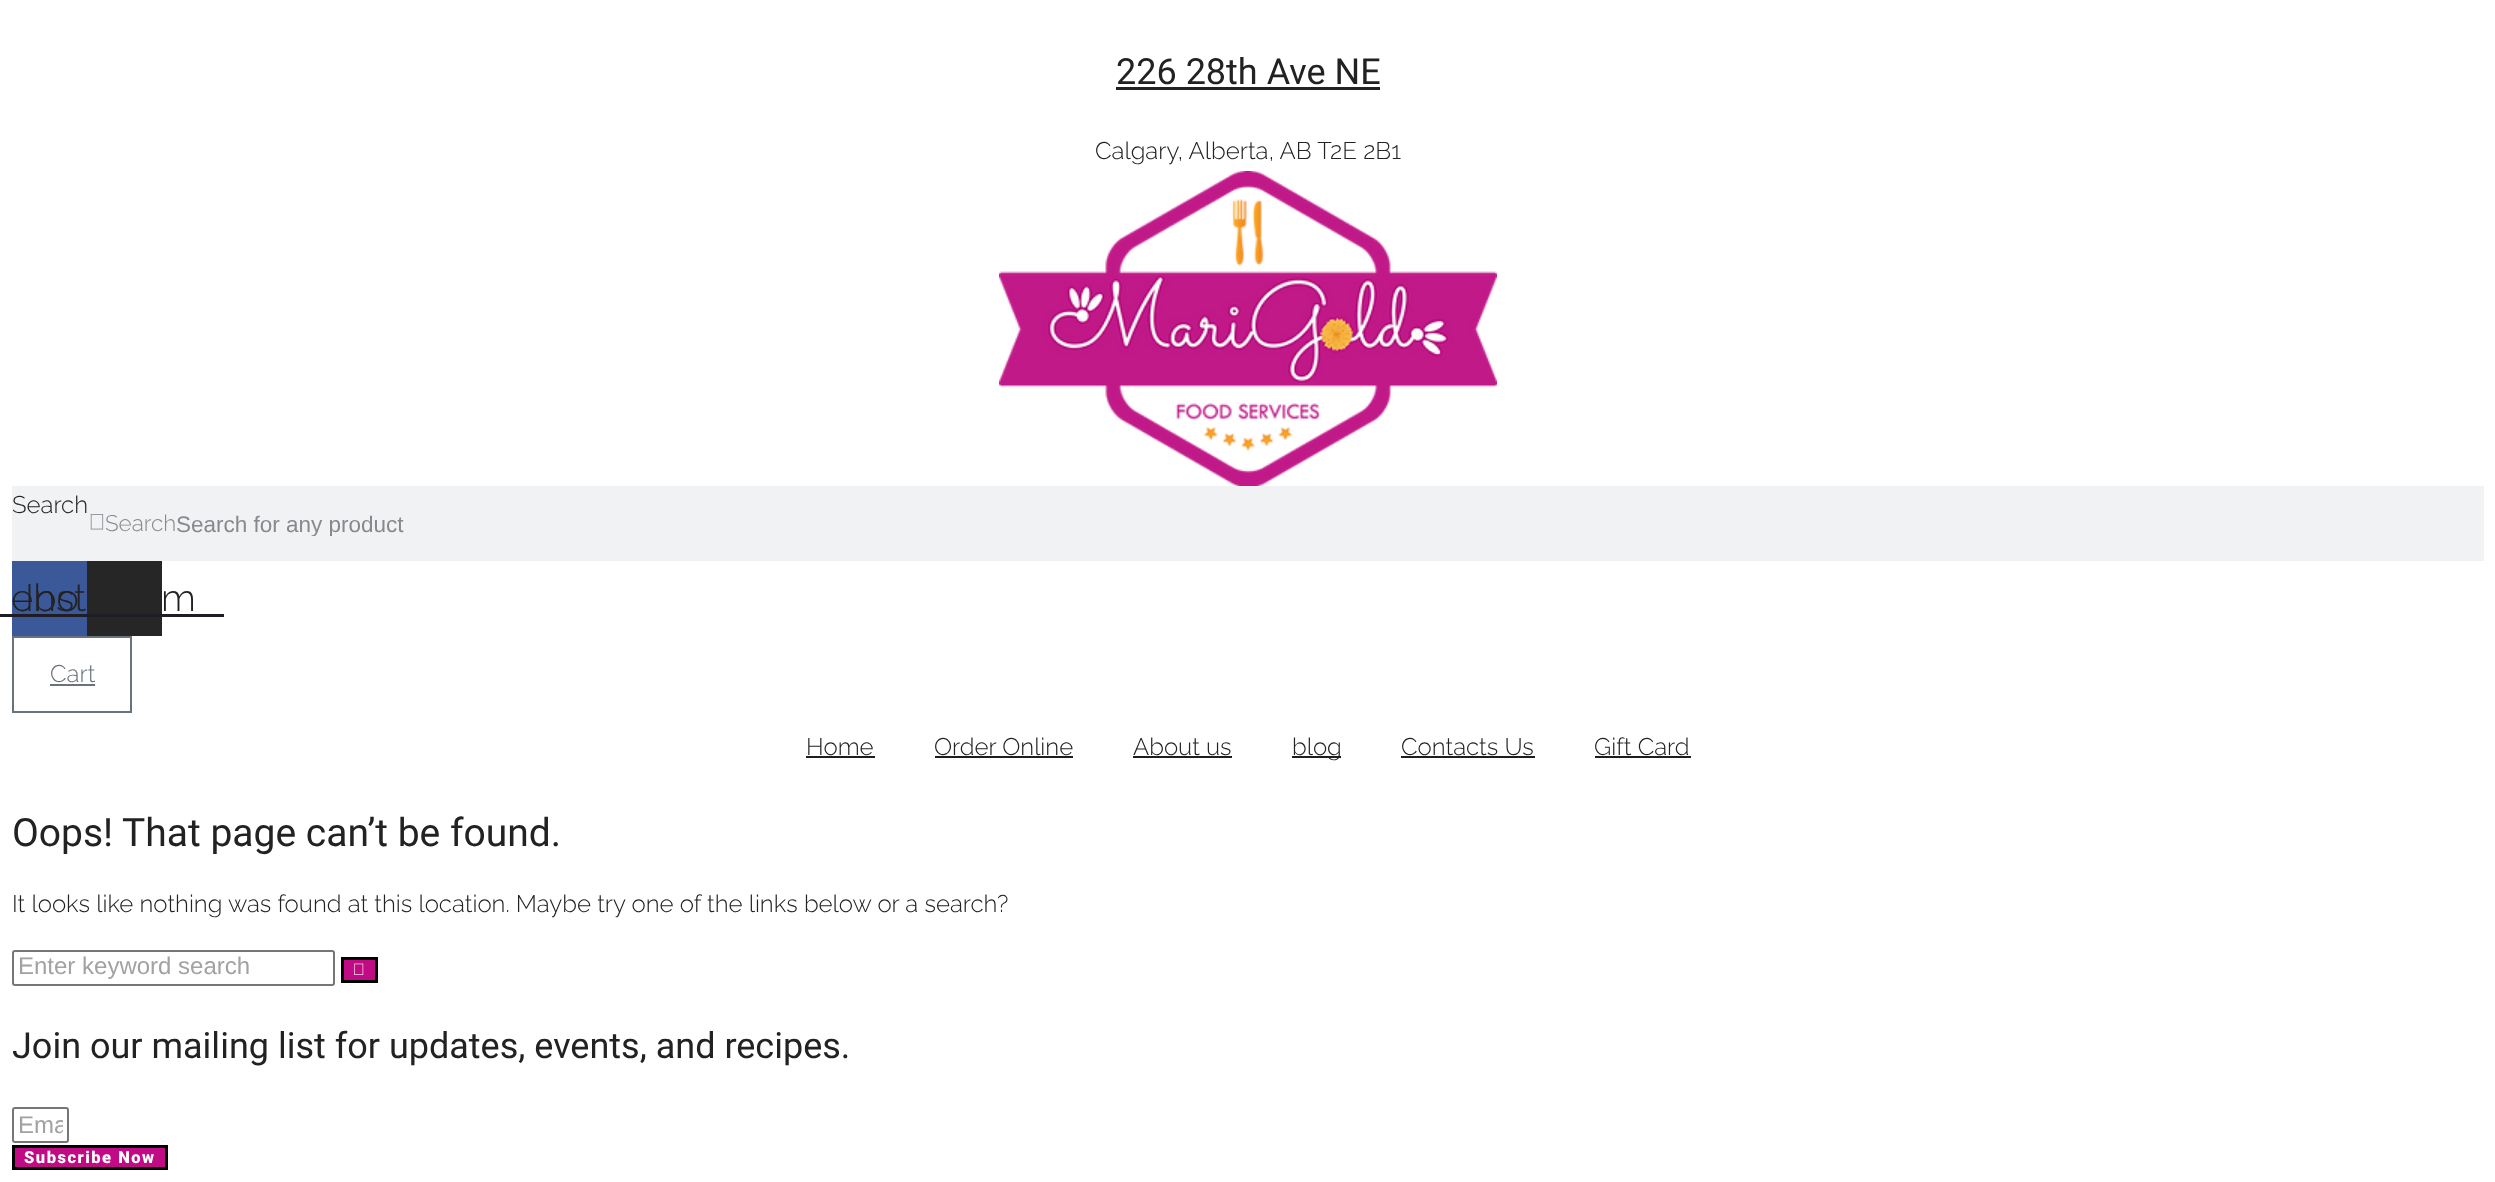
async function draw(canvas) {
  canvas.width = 2495;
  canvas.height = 1182;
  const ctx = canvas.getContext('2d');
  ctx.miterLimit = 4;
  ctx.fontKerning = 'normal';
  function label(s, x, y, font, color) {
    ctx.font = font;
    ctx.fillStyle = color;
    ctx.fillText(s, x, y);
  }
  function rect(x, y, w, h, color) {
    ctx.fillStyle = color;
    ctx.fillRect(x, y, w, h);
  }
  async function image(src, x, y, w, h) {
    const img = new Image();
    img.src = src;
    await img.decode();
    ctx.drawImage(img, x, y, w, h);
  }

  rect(0, 0, 2495, 1182, '#fff');
  label('226 28th Ave NE', 1116, 84, '36px Roboto', '#232222');
  rect(1116, 87, 264, 3, '#232222');
  label('Calgary, Alberta, AB T2E 2B1', 1095, 159, '300 24px Raleway', '#232222');
  await image('assets/img1.png', 999, 171, 498, 315);
  rect(12, 486, 2472, 75, '#f1f2f3');
  label('Search', 12, 513, '300 24px Raleway', '#232222');
  await image('assets/img2.png', 90, 514, 14, 16);
  label('Search', 105, 531, '300 22.5px Raleway', '#868a8e');
  ctx.save();
  ctx.beginPath();
  ctx.rect(176, 510, 2287, 26);
  ctx.clip();
  label('Search for any product', 176, 532, '22.5px Liberation Sans', '#868a8e');
  ctx.restore();
  rect(12, 561, 75, 75, '#3b5998');
  label('ebo', 11, 611, '300 38px Raleway', '#232222');
  rect(0, 614, 26, 3, '#1e1d24');
  rect(87, 561, 75, 75, '#262626');
  label('Inst', 25, 611, '300 38px Raleway', '#232222');
  label('m', 161, 611, '300 38px Raleway', '#232222');
  rect(26, 614, 198, 3, '#1e1d24');
  ctx.strokeStyle = '#69727d';
  ctx.lineWidth = 2;
  ctx.strokeRect(13, 637, 118, 75);
  label('Cart', 50, 682, '300 24px Raleway', '#69727d');
  rect(50, 684, 45, 2, '#69727d');
  label('Home', 806, 755, '300 24px Raleway', '#232222');
  rect(806, 756, 69, 2, '#1e1d24');
  label('Order Online', 934, 755, '300 24px Raleway', '#232222');
  rect(935, 756, 138, 2, '#1e1d24');
  label('About us', 1133, 755, '300 24px Raleway', '#232222');
  rect(1133, 756, 99, 2, '#1e1d24');
  rect(1292, 756, 49, 2, '#1e1d24');
  label('blog', 1292, 755, '300 24px Raleway', '#232222');
  label('Contacts Us', 1401, 755, '300 24px Raleway', '#232222');
  rect(1401, 756, 134, 2, '#1e1d24');
  label('Gift Card', 1594, 755, '300 24px Raleway', '#232222');
  rect(1595, 756, 96, 2, '#1e1d24');
  label('Oops! That page can’t be found.', 12, 846, '39px Roboto', '#232222');
  label('It looks like nothing was found at this location. Maybe try one of the links below or a search?', 12, 912, '300 24px Raleway', '#232222');
  ctx.beginPath();
  ctx.roundRect(13, 951, 321, 34, 2);
  ctx.strokeStyle = '#767676';
  ctx.stroke();
  label('Enter keyword search', 18, 974, '24px Liberation Sans', '#a1a2a4');
  ctx.fillStyle = '#c10b85';
  ctx.beginPath();
  ctx.rect(342.5, 958.5, 34, 23);
  ctx.fill();
  ctx.strokeStyle = '#000';
  ctx.lineWidth = 3;
  ctx.stroke();
  await image('assets/img3.png', 354, 963, 10, 12);
  label('Join our mailing list for updates, events, and recipes.', 12, 1058, '36px Roboto', '#232222');
  ctx.beginPath();
  ctx.roundRect(13, 1108, 55, 34, 2);
  ctx.strokeStyle = '#767676';
  ctx.lineWidth = 2;
  ctx.stroke();
  ctx.save();
  ctx.beginPath();
  ctx.rect(18, 1112, 45, 27);
  ctx.clip();
  label('Ema', 18, 1133, '24px Liberation Sans', '#a1a2a4');
  ctx.restore();
  ctx.fillStyle = '#c10b85';
  ctx.beginPath();
  ctx.rect(13.5, 1146.5, 153, 22);
  ctx.fill();
  ctx.strokeStyle = '#000';
  ctx.lineWidth = 3;
  ctx.stroke();
  ctx.letterSpacing = '1.5px';
  label('Subscribe Now', 24, 1163, '900 16.5px Roboto', '#fff');
}

draw(document.querySelector('canvas'));
